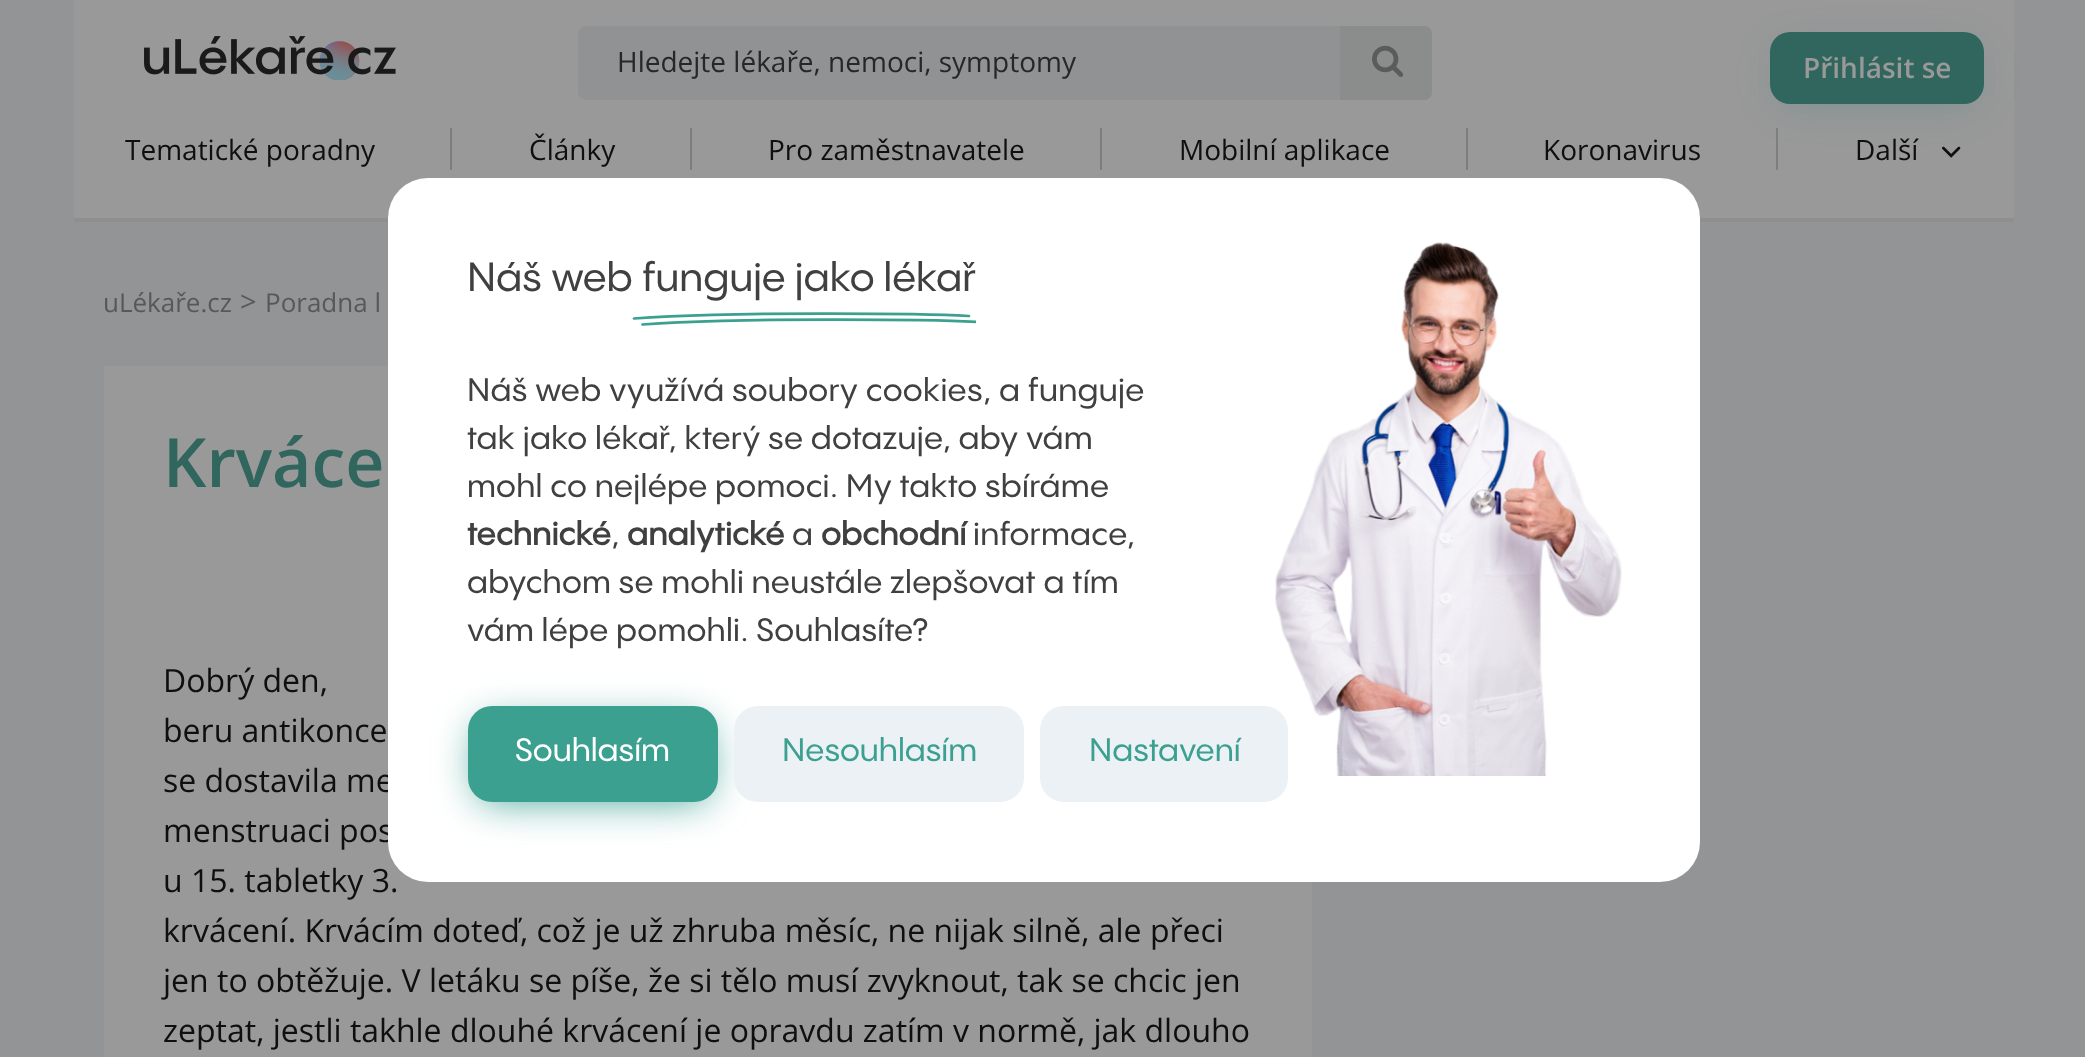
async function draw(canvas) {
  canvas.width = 2085;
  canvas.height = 1057;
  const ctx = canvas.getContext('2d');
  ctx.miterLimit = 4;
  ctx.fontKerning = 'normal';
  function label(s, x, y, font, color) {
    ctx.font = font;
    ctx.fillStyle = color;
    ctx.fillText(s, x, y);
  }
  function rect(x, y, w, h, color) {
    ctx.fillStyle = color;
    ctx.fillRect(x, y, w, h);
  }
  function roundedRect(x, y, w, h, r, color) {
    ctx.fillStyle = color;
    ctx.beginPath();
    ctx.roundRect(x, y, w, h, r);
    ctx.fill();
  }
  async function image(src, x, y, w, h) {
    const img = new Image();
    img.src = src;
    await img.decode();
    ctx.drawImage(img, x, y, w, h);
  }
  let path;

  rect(0, 0, 2085, 1057, '#929496');
  rect(74, 0, 1940, 218, '#999');
  await image('assets/img1.png', 144, 36, 252, 44);
  roundedRect(578, 26, 854, 74, 8, '#919293');
  label('Hledejte lékaře, nemoci, symptomy', 617, 72, '28px Open Sans', '#272727');
  ctx.fillStyle = '#8b8c8c';
  ctx.beginPath();
  ctx.roundRect(1340, 26, 92, 74, [0, 8, 8, 0]);
  ctx.fill();
  await image('assets/img2.png', 1372, 45, 32, 32);
  rect(74, 218, 1940, 4, '#8f8f8f');
  ctx.fillStyle = '#136d7440';
  ctx.filter = 'blur(20px)';
  ctx.beginPath();
  ctx.roundRect(1780, 50, 194, 52, 10);
  ctx.fill();
  ctx.filter = 'none';
  roundedRect(1770, 32, 214, 72, 20, '#30665d');
  label('Přihlásit se', 1803, 78, '600 28px Open Sans', '#999');
  label('Tematické poradny', 125, 160, '28px Open Sans', '#0f0f0f');
  rect(450, 128, 2, 42, '#7e7e7e');
  label('Články', 529, 160, '28px Open Sans', '#0f0f0f');
  rect(690, 128, 2, 42, '#7e7e7e');
  label('Pro zaměstnavatele', 768, 160, '28px Open Sans', '#0f0f0f');
  rect(1100, 128, 2, 42, '#7e7e7e');
  label('Mobilní aplikace', 1179, 160, '28px Open Sans', '#0f0f0f');
  rect(1466, 128, 2, 42, '#7e7e7e');
  label('Koronavirus', 1543, 160, '28px Open Sans', '#0f0f0f');
  rect(1776, 128, 2, 42, '#7e7e7e');
  label('Další', 1855, 160, '28px Open Sans', '#0f0f0f');
  await image('assets/img3.png', 1942, 146, 19, 12);
  rect(104, 366, 1208, 691, '#999');
  label('se dostavila me', 163, 792, '32px Open Sans', '#0f0f0f');
  label('menstruaci pos', 163, 842, '32px Open Sans', '#0f0f0f');
  label('u 15. tabletky 3.', 163, 892, '32px Open Sans', '#0f0f0f');
  roundedRect(388, 178, 1312, 704, 40, '#fff');
  label('Náš web funguje jako lékař', 467, 291, '500 40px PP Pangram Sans', '#404040');
  path = new Path2D('M634 318.5C730.5 311.5 923.5 313.5 969 316');
  ctx.strokeStyle = '#3ca091';
  ctx.lineWidth = 2.7;
  ctx.lineCap = 'round';
  ctx.lineJoin = 'round';
  ctx.stroke(path);
  ctx.save();
  ctx.beginPath();
  ctx.rect(632, 300, 344, 38);
  ctx.clip();
  path = new Path2D('M642.5 324.5C739 317.5 932 319.5 977.5 322');
  ctx.stroke(path);
  ctx.restore();
  ctx.letterSpacing = '0.25px';
  label('Náš web využívá soubory cookies, a funguje', 467, 401, '500 32px PP Pangram Sans', '#404040');
  label('tak jako lékař, který se dotazuje, aby vám', 467, 449, '500 32px PP Pangram Sans', '#404040');
  label('mohl co nejlépe pomoci. My takto sbíráme', 467, 497, '500 32px PP Pangram Sans', '#404040');
  label('technické', 467, 545, 'bold 32px PP Pangram Sans', '#404040');
  label(',', 611, 545, '500 32px PP Pangram Sans', '#404040');
  label('analytické', 627, 545, 'bold 32px PP Pangram Sans', '#404040');
  label('a', 792, 545, '500 32px PP Pangram Sans', '#404040');
  label('obchodní', 821, 545, 'bold 32px PP Pangram Sans', '#404040');
  label('informace,', 973, 545, '500 32px PP Pangram Sans', '#404040');
  label('abychom se mohli neustále zlepšovat a tím', 467, 593, '500 32px PP Pangram Sans', '#404040');
  label('vám lépe pomohli. Souhlasíte?', 467, 641, '500 32px PP Pangram Sans', '#404040');
  ctx.fillStyle = '#3ca091';
  ctx.filter = 'blur(20px)';
  ctx.beginPath();
  ctx.roundRect(478, 724, 230, 76, 14);
  ctx.fill();
  ctx.filter = 'none';
  roundedRect(468, 706, 250, 96, 24, '#3ca091');
  ctx.letterSpacing = '0px';
  label('Souhlasím', 515, 761, '500 32px PP Pangram Sans', '#fff');
  roundedRect(734, 706, 290, 96, 24, '#ecf1f6');
  label('Nesouhlasím', 782, 761, '500 32px PP Pangram Sans', '#3ca091');
  roundedRect(1040, 706, 248, 96, 24, '#ecf1f6');
  label('Nastavení', 1089, 761, '500 32px PP Pangram Sans', '#3ca091');
  await image('assets/img4.png', 1275, 242, 347, 534);
  label('uLékaře.cz', 103, 312, '26px Open Sans', '#585858');
  label('>', 240, 312, '29px Open Sans', '#585858');
  label('Poradna l', 265, 312, '26px Open Sans', '#585858');
  label('Krváce', 163, 487, '600 68px Open Sans', '#30665d');
  label('Dobrý den,', 163, 692, '32px Open Sans', '#0f0f0f');
  label('beru antikonce', 163, 742, '32px Open Sans', '#0f0f0f');
  label('krvácení. Krvácím doteď, což je už zhruba měsíc, ne nijak silně, ale přeci', 163, 942, '32px Open Sans', '#0f0f0f');
  label('jen to obtěžuje. V letáku se píše, že si tělo musí zvyknout, tak se chcic jen', 163, 992, '32px Open Sans', '#0f0f0f');
  label('zeptat, jestli takhle dlouhé krvácení je opravdu zatím v normě, jak dlouho', 163, 1042, '32px Open Sans', '#0f0f0f');
}

draw(document.querySelector('canvas'));
